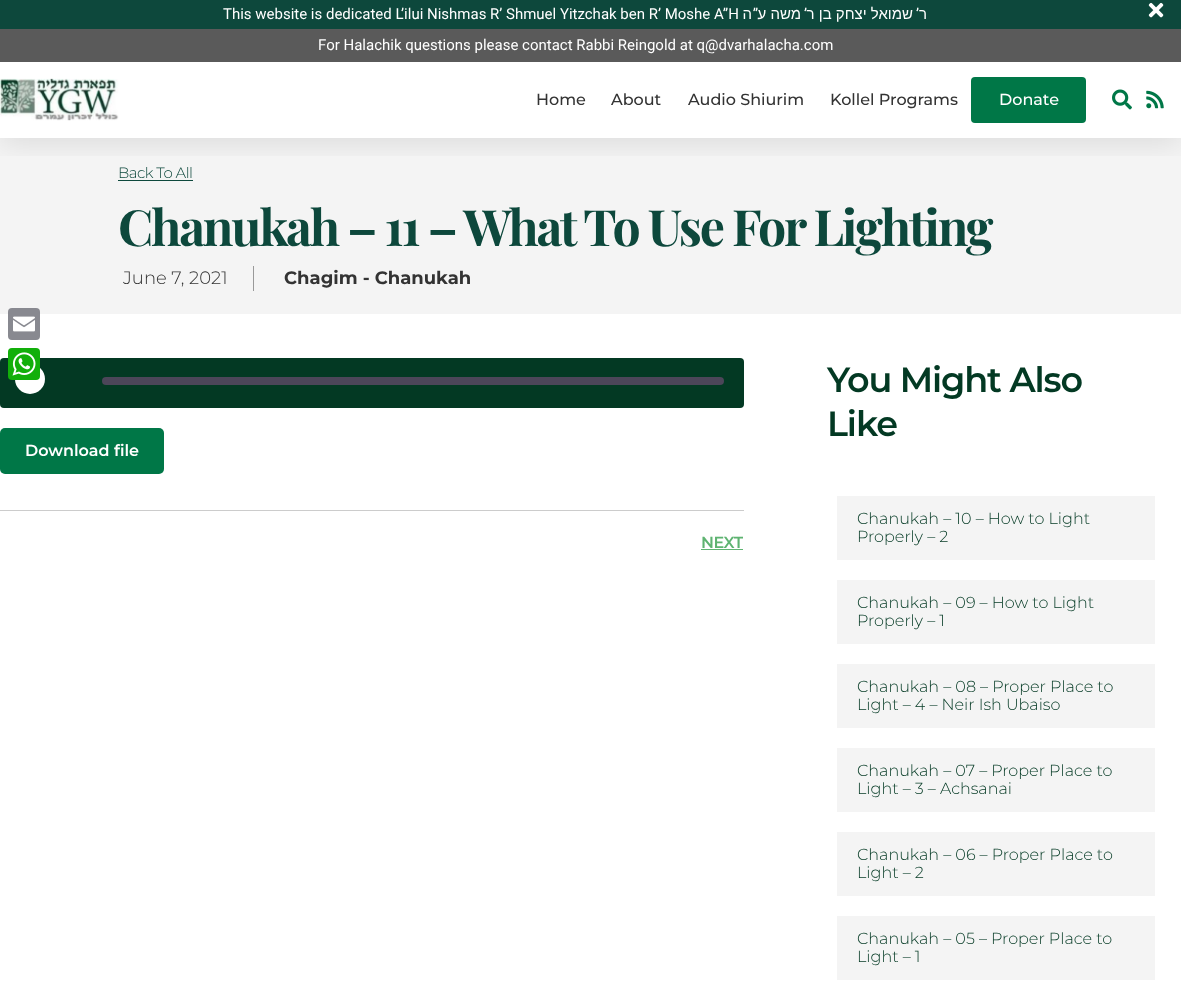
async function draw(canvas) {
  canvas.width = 1181;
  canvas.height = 996;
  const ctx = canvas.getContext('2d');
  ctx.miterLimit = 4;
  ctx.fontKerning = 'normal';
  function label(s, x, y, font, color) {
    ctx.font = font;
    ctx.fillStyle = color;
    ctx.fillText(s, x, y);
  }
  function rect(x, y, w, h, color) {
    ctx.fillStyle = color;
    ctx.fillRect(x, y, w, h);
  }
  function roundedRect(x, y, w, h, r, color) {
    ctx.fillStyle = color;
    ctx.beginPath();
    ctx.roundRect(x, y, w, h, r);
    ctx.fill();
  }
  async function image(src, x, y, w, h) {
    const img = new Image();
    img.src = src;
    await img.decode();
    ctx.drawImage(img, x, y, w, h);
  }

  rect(0, 0, 1181, 996, '#fff');
  rect(0, 138, 1181, 176, '#f4f4f4');
  roundedRect(8, 308, 32, 32, 4, '#888990');
  await image('assets/img1.png', 13, 316, 22, 16);
  roundedRect(0, 358, 744, 50, 4, '#033923');
  ctx.fillStyle = '#fff';
  ctx.beginPath();
  ctx.arc(30, 379, 15, 0, 2 * Math.PI);
  ctx.fill();
  roundedRect(8, 348, 32, 32, 4, '#12af0a');
  await image('assets/img2.png', 12, 352, 24, 24);
  rect(118, 180, 75, 1, '#0d483c');
  ctx.save();
  ctx.beginPath();
  ctx.rect(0, 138, 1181, 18);
  ctx.clip();
  ctx.fillStyle = '#0000001a';
  ctx.filter = 'blur(15px)';
  ctx.beginPath();
  ctx.rect(0, 5, 1181, 138);
  ctx.fill();
  ctx.filter = 'none';
  ctx.restore();
  rect(0, 0, 1181, 29, '#0d483c');
  label('This website is dedicated L’ilui Nishmas R’ Shmuel Yitzchak ben R’ Moshe A”H', 223, 19, '15px Roboto', '#fff');
  ctx.direction = 'rtl';
  label('ה', 752, 19, '15px Liberation Sans', '#fff');
  label('”', 758, 19, '15px Roboto', '#fff');
  label('משה ע', 801, 19, '15px Liberation Sans', '#fff');
  label('’', 807, 19, '15px Roboto', '#fff');
  label('שמואל יצחק בן ר', 913, 19, '15px Liberation Sans', '#fff');
  label('’', 919, 19, '15px Roboto', '#fff');
  label('ר', 927, 19, '15px Liberation Sans', '#fff');
  await image('assets/img3.png', 1148, 2, 16, 16);
  rect(0, 29, 1181, 33, '#5a5a5a');
  ctx.direction = 'ltr';
  label('For Halachik questions please contact Rabbi Reingold at q@dvarhalacha.com', 318, 50, '15px Roboto', '#fff');
  await image('assets/img4.png', 0, 78, 119, 43);
  label('Home', 536, 105, '500 16px Montserrat', '#333');
  label('About', 611, 105, '500 16px Montserrat', '#333');
  label('Audio Shiurim', 688, 105, '500 16px Montserrat', '#333');
  label('Kollel Programs', 830, 105, '500 16px Montserrat', '#333');
  roundedRect(971, 77, 115, 46, 4, '#007747');
  label('Donate', 999, 105, '500 16px Montserrat', '#fff');
  await image('assets/img5.png', 1112, 89, 20, 21);
  await image('assets/img6.png', 1146, 90, 18, 19);
  ctx.letterSpacing = '-0.5px';
  label('Back To All', 118, 178, '300 15px Montserrat', '#0d483c');
  ctx.letterSpacing = '-2.25px';
  label('Chanukah – 11 – What To Use For Lighting', 118, 246, 'bold 50px Playfair Display', '#0d483c');
  ctx.letterSpacing = '0px';
  label('June 7, 2021', 123, 284, '300 18px Montserrat', '#333');
  rect(253, 266, 1, 25, '#999');
  label('Chagim - Chanukah', 284, 284, 'bold 18px Montserrat', '#333');
  rect(0, 510, 744, 1, '#ccc');
  roundedRect(102, 377, 622, 8, 4, '#4c4659');
  roundedRect(0, 428, 164, 46, 5, '#007747');
  label('Download file', 25, 456, '600 16px Montserrat', '#fff');
  ctx.save();
  ctx.beginPath();
  ctx.rect(701, 531, 42, 25);
  ctx.clip();
  ctx.letterSpacing = '-0.5px';
  label('NEXT', 701, 548, '600 16px Montserrat', '#5eb371');
  ctx.restore();
  rect(701, 549, 42, 1, '#5eb371');
  ctx.letterSpacing = '-1.1px';
  label('You Might Also', 827, 392, '600 35px Montserrat', '#033923');
  label('Like', 827, 436, '600 35px Montserrat', '#033923');
  rect(837, 496, 318, 64, '#f4f4f4');
  ctx.letterSpacing = '0px';
  label('Chanukah – 10 – How to Light', 857, 524, '300 16px Montserrat', '#033923');
  label('Properly – 2', 857, 542, '300 16px Montserrat', '#033923');
  rect(837, 580, 318, 64, '#f4f4f4');
  label('Chanukah – 09 – How to Light', 857, 608, '300 16px Montserrat', '#033923');
  label('Properly – 1', 857, 626, '300 16px Montserrat', '#033923');
  rect(837, 664, 318, 64, '#f4f4f4');
  label('Chanukah – 08 – Proper Place to', 857, 692, '300 16px Montserrat', '#033923');
  label('Light – 4 – Neir Ish Ubaiso', 857, 710, '300 16px Montserrat', '#033923');
  rect(837, 748, 318, 64, '#f4f4f4');
  label('Chanukah – 07 – Proper Place to', 857, 776, '300 16px Montserrat', '#033923');
  label('Light – 3 – Achsanai', 857, 794, '300 16px Montserrat', '#033923');
  rect(837, 832, 318, 64, '#f4f4f4');
  label('Chanukah – 06 – Proper Place to', 857, 860, '300 16px Montserrat', '#033923');
  label('Light – 2', 857, 878, '300 16px Montserrat', '#033923');
  rect(837, 916, 318, 64, '#f4f4f4');
  label('Chanukah – 05 – Proper Place to', 857, 944, '300 16px Montserrat', '#033923');
  label('Light – 1', 857, 962, '300 16px Montserrat', '#033923');
}

draw(document.querySelector('canvas'));
